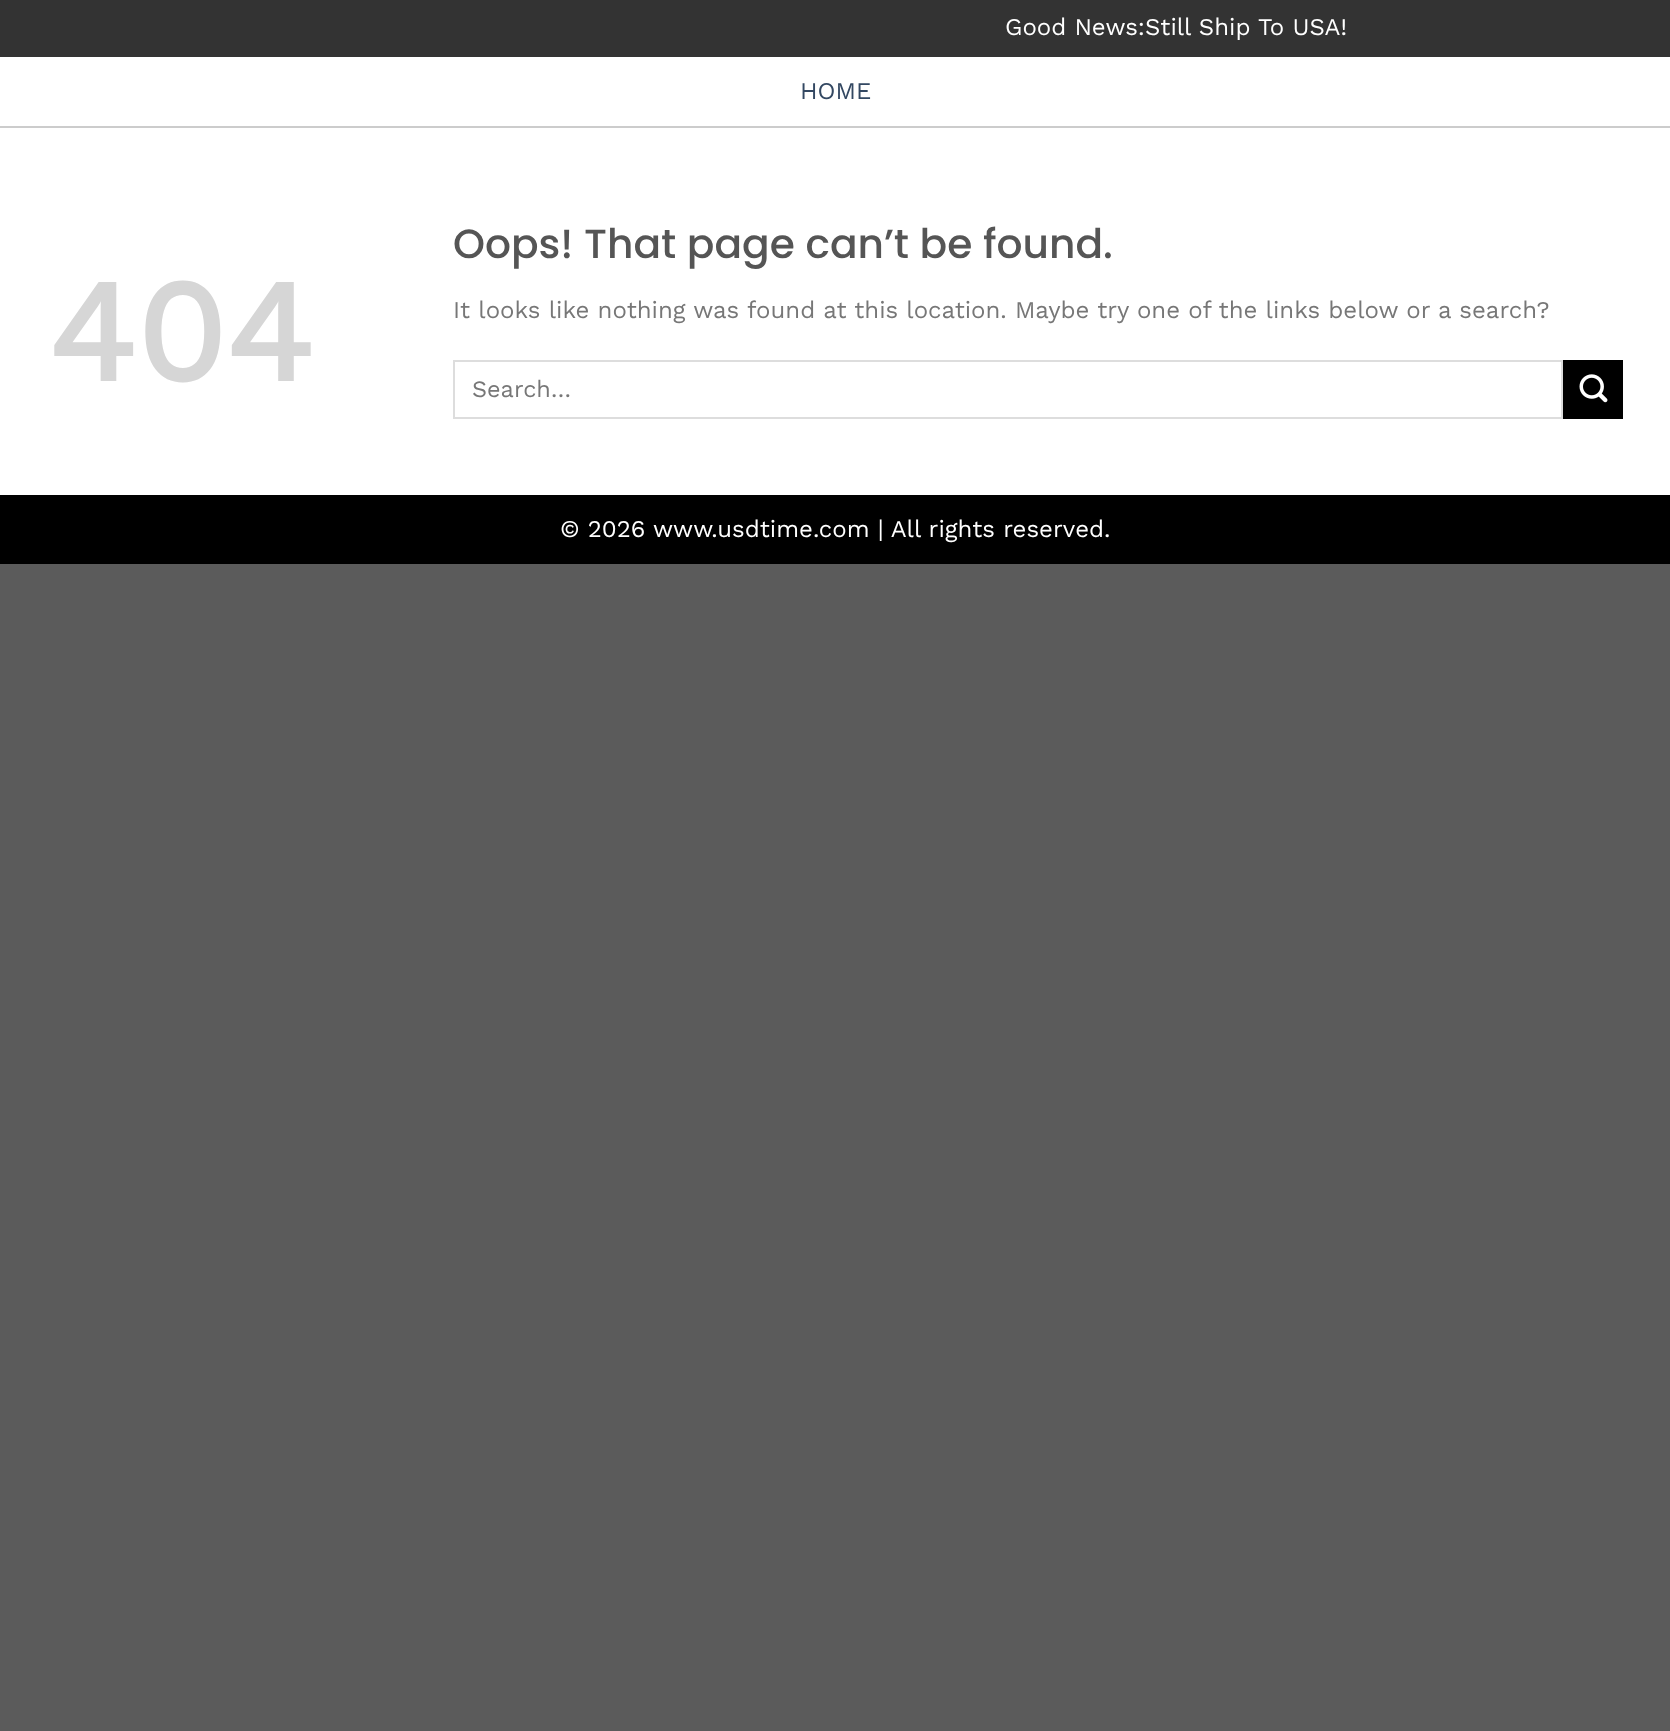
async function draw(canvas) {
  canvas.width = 1670;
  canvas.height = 1731;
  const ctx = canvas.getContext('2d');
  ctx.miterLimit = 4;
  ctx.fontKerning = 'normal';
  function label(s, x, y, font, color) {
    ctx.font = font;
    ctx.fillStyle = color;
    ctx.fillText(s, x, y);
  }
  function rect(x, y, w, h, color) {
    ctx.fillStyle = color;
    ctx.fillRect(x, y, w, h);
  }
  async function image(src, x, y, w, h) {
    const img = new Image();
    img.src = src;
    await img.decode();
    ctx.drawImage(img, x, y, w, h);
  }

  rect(0, 0, 1670, 1731, '#5b5b5b');
  rect(0, 57, 1670, 438, '#fff');
  rect(0, 0, 1670, 57, '#333');
  label('Good News:Still Ship To USA!', 1005, 35, '24px Work Sans', '#fff');
  rect(0, 126, 1670, 2, '#ccc');
  label('HOME', 800, 99, '24px Work Sans', '#334862');
  label('404', 48, 381, 'bold 144px Work Sans', '#d6d6d6');
  label('Oops! That page can’t be found.', 453, 258, '500 40.75px Poppins', '#555');
  label('It looks like nothing was found at this location. Maybe try one of the links below or a search?', 453, 318, '24px Work Sans', '#777');
  ctx.strokeStyle = '#ddd';
  ctx.lineWidth = 2;
  ctx.strokeRect(454, 361, 1108, 57);
  label('Search…', 472, 397, '23.5px Work Sans', '#777');
  rect(1563, 360, 60, 59, '#000');
  await image('assets/img1.png', 1579, 374, 29, 29);
  rect(0, 495, 1670, 69, '#000');
  label('© 2026 www.usdtime.com | All rights reserved.', 560, 537, '24px Work Sans', '#fff');
}

draw(document.querySelector('canvas'));
